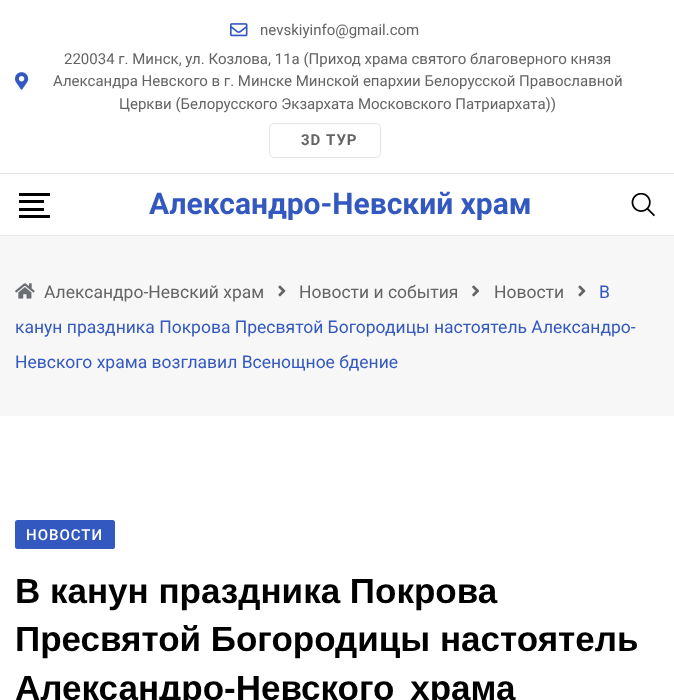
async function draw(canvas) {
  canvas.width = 674;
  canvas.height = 700;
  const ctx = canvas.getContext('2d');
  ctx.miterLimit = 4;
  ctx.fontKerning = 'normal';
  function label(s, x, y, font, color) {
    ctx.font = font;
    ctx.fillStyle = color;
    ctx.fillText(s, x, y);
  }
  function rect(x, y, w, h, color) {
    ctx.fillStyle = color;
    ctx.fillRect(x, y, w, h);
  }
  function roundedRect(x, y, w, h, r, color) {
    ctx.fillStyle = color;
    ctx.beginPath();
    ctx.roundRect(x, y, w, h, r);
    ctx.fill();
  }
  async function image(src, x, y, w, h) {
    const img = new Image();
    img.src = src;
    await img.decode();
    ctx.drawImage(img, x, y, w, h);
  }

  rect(0, 0, 674, 700, '#fff');
  rect(0, 173, 674, 1, '#e5e5e5');
  await image('assets/img1.png', 230, 23, 18, 14);
  label('nevskiyinfo@gmail.com', 260, 35, '15px Roboto', '#646464');
  await image('assets/img2.png', 15, 72, 14, 18);
  label('220034 г. Минск, ул. Козлова, 11a (Приход храма святого благоверного князя', 64, 64, '15px Roboto', '#646464');
  label('Александра Невского в г. Минске Минской епархии Белорусской Православной', 53, 86, '15px Roboto', '#646464');
  label('Церкви (Белорусского Экзархата Московского Патриархата))', 119, 109, '15px Roboto', '#646464');
  ctx.beginPath();
  ctx.roundRect(269.5, 123.5, 111, 34, 4.5);
  ctx.strokeStyle = '#e5e5e5';
  ctx.stroke();
  ctx.letterSpacing = '1px';
  label('3D ТУР', 301, 145, 'bold 15px Roboto', '#646464');
  rect(0, 235, 674, 1, '#e9e9e9');
  rect(19, 193, 31, 3, '#000');
  rect(19, 200, 25, 3, '#000');
  rect(19, 208, 25, 3, '#000');
  rect(19, 215, 31, 3, '#000');
  ctx.letterSpacing = '0px';
  label('Александро-Невский храм', 149, 214, 'bold 30px Roboto', '#3358bf');
  await image('assets/img3.png', 631, 193, 24, 24);
  rect(0, 236, 674, 180, '#f7f7f7');
  await image('assets/img4.png', 15, 283, 20, 16);
  label('Александро-Невский храм', 44, 298, '17.5px Roboto', '#646464');
  await image('assets/img5.png', 278, 285, 8, 12);
  label('Новости и события', 299, 298, '17.5px Roboto', '#646464');
  await image('assets/img6.png', 472, 285, 8, 12);
  label('Новости', 494, 298, '17.5px Roboto', '#646464');
  await image('assets/img5.png', 578, 285, 8, 12);
  label('В', 599, 298, '17.5px Roboto', '#3358bf');
  label('канун праздника Покрова Пресвятой Богородицы настоятель Александро-', 15, 333, '17.5px Roboto', '#3358bf');
  label('Невского храма возглавил Всенощное бдение', 15, 368, '17.5px Roboto', '#3358bf');
  roundedRect(15, 520, 100, 29, 2.5, '#3358bf');
  ctx.letterSpacing = '1px';
  label('НОВОСТИ', 26, 540, '500 15px Roboto', '#fff');
  ctx.letterSpacing = '0px';
  label('В канун праздника Покрова', 15, 603, 'bold 35px Liberation Sans', '#000');
  label('Пресвятой Богородицы настоятель', 15, 651, 'bold 35px Liberation Sans', '#000');
  ctx.wordSpacing = '6px';
  label('Александро-Невского храма', 15, 700, 'bold 35px Liberation Sans', '#000');
}

draw(document.querySelector('canvas'));
